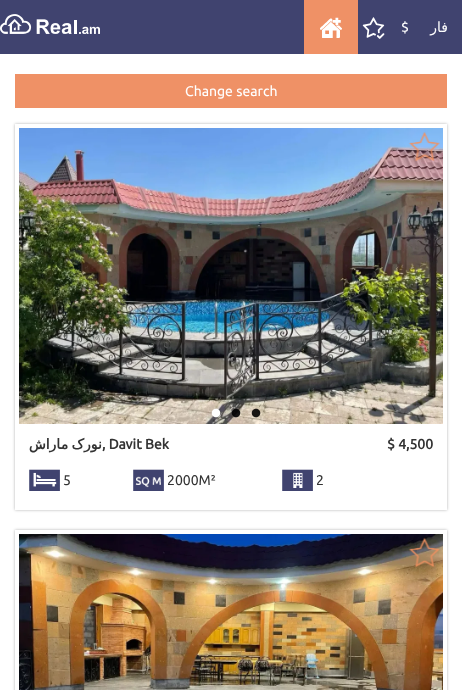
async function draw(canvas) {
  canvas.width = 462;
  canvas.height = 690;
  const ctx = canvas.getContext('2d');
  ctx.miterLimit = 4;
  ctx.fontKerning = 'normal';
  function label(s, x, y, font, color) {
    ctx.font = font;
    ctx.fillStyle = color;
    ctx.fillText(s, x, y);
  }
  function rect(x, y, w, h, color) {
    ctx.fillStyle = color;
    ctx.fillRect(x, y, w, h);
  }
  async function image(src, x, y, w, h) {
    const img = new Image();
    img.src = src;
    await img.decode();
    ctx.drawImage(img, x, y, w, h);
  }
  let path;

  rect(0, 0, 462, 690, '#fff');
  rect(0, 0, 462, 54, '#40436f');
  await image('assets/img1.png', 0, 14, 100, 20);
  rect(304, 0, 54, 54, '#ef9166');
  await image('assets/img2.png', 320, 17, 22, 21);
  await image('assets/img3.png', 362, 17, 23, 22);
  label('$', 401, 32, '14px Ubuntu', '#fff');
  ctx.direction = 'rtl';
  label('فار', 448, 32, '14px DejaVu Sans', '#fff');
  rect(15, 74, 432, 34, '#ef9166');
  ctx.direction = 'ltr';
  label('Change search', 185, 96, '14px Ubuntu', '#fff');
  ctx.save();
  path = new Path2D('M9 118H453V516H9ZM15 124H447V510H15Z');
  ctx.clip(path, 'evenodd');
  ctx.fillStyle = '#0000004d';
  ctx.filter = 'blur(1.5px)';
  ctx.beginPath();
  ctx.rect(15, 124, 432, 386);
  ctx.fill();
  ctx.filter = 'none';
  ctx.restore();
  await image('assets/img4.png', 19, 128, 424, 296);
  await image('assets/img5.png', 211, 408, 10, 10);
  await image('assets/img6.png', 231, 408, 10, 10);
  await image('assets/img7.png', 251, 408, 10, 10);
  await image('assets/img8.png', 408, 132, 32, 29);
  ctx.wordSpacing = '-1px';
  ctx.direction = 'rtl';
  label('نورک ماراش', 102, 449, 'bold 14px DejaVu Sans', '#333');
  ctx.wordSpacing = '0px';
  ctx.direction = 'ltr';
  label(', Davit Bek', 102, 449, 'bold 14px Ubuntu', '#333');
  label('$ 4,500', 387, 449, 'bold 14px Ubuntu', '#333');
  await image('assets/img9.png', 29, 469, 31, 22);
  label('5', 63, 485, '14px Ubuntu', '#333');
  await image('assets/img10.png', 133, 469, 31, 22);
  label('2000M²', 167, 485, '14px Ubuntu', '#333');
  await image('assets/img11.png', 282, 469, 31, 22);
  label('2', 316, 485, '14px Ubuntu', '#333');
  ctx.save();
  path = new Path2D('M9 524H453V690H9ZM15 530H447V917H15Z');
  ctx.clip(path, 'evenodd');
  ctx.fillStyle = '#0000004d';
  ctx.filter = 'blur(1.5px)';
  ctx.beginPath();
  ctx.rect(15, 530, 432, 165);
  ctx.fill();
  ctx.filter = 'none';
  ctx.restore();
  await image('assets/img12.png', 19, 534, 424, 156);
  await image('assets/img13.png', 408, 537, 32, 31);
}

draw(document.querySelector('canvas'));
